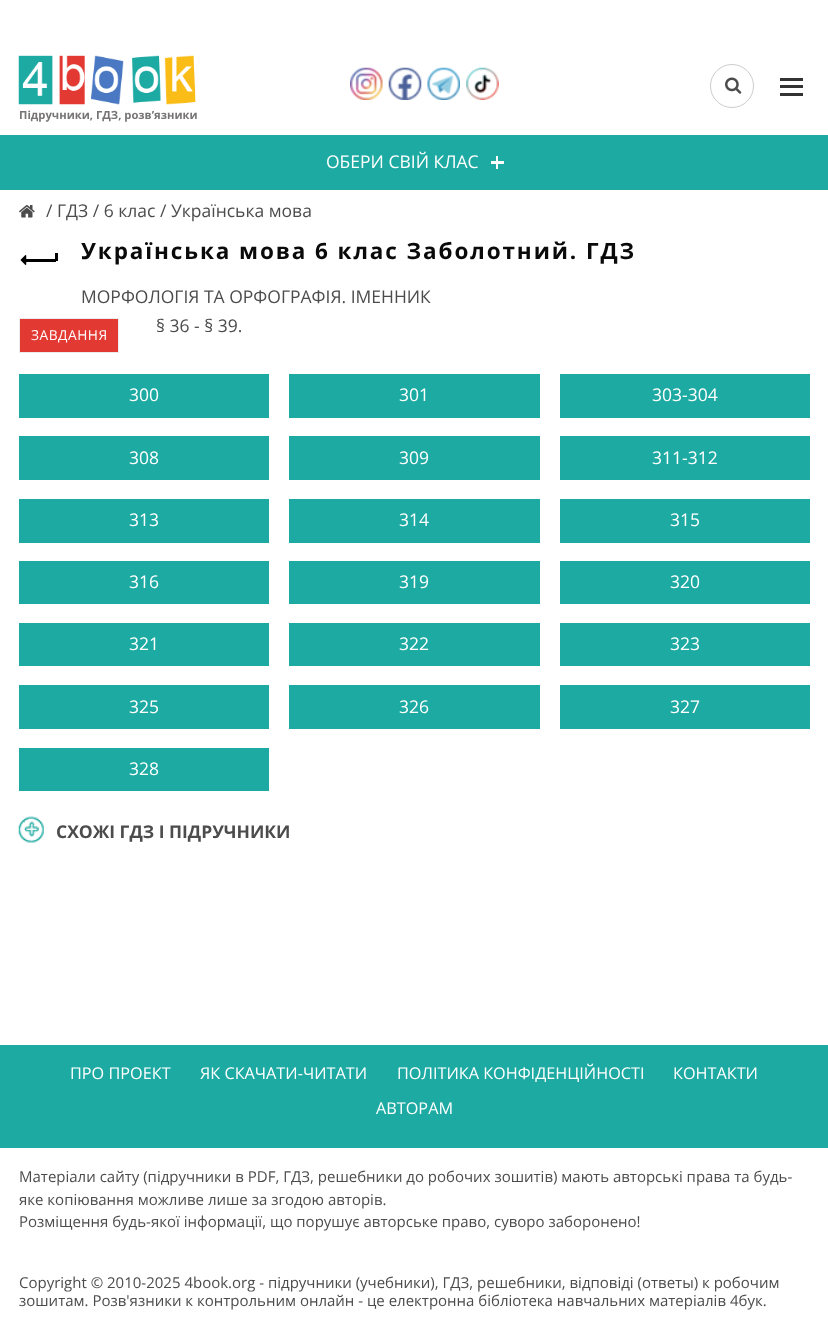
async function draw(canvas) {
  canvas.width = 828;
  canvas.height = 1330;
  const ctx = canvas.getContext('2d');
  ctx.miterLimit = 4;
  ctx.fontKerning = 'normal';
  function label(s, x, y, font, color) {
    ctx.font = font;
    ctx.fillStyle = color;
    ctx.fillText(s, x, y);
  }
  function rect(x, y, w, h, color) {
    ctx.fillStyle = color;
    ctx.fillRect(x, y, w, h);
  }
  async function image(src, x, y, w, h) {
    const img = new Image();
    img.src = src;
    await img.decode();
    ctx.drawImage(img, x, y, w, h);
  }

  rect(0, 0, 828, 1330, '#fff');
  await image('assets/img1.png', 350, 67, 33, 33);
  await image('assets/img2.png', 388, 67, 34, 33);
  await image('assets/img3.png', 427, 67, 33, 33);
  await image('assets/img4.png', 466, 67, 33, 33);
  await image('assets/img5.png', 725, 77, 17, 17);
  ctx.beginPath();
  ctx.arc(732, 86, 21.5, 0, 2 * Math.PI);
  ctx.strokeStyle = '#ccc';
  ctx.stroke();
  rect(780, 85, 23, 3, '#333');
  rect(780, 78, 23, 3, '#333');
  rect(780, 93, 23, 3, '#333');
  await image('assets/img6.png', 18, 55, 178, 50);
  label('Підручники, ГДЗ, розв’язники', 19, 119, 'bold 11.25px Open Sans', '#767474');
  rect(0, 135, 828, 55, '#1daaa3');
  label('ОБЕРИ СВІЙ КЛАС', 326, 168, '17.5px Open Sans', '#fff');
  rect(496, 156, 2, 13, '#fff');
  rect(491, 161, 13, 3, '#fff');
  await image('assets/img7.png', 19, 205, 16, 13);
  label('/ ГДЗ / 6 клас / Українська мова', 46, 217, '17.5px Open Sans', '#4c4c4c');
  rect(25, 259, 31, 3, '#000');
  await image('assets/img8.png', 20, 255, 7, 10);
  rect(55, 253, 3, 8, '#000');
  ctx.letterSpacing = '1.9px';
  label('Українська мова 6 клас Заболотний. ГДЗ', 81, 259, 'bold 22.5px Open Sans', '#0a0a0a');
  ctx.letterSpacing = '0px';
  label('МОРФОЛОГІЯ ТА ОРФОГРАФІЯ. ІМЕННИК', 81, 303, '17.5px Open Sans', '#4c4c4c');
  label('§ 36 - § 39.', 156, 332, '17.5px Open Sans', '#4c4c4c');
  ctx.fillStyle = '#e23933';
  ctx.beginPath();
  ctx.rect(19.5, 318.5, 99, 34);
  ctx.fill();
  ctx.strokeStyle = '#ececec';
  ctx.stroke();
  ctx.letterSpacing = '0.5px';
  label('ЗАВДАННЯ', 31, 340, '13.75px Open Sans', '#fff');
  rect(19, 374, 250, 44, '#1daaa3');
  ctx.letterSpacing = '0px';
  label('300', 129, 401, '17.5px Open Sans', '#fff');
  rect(289, 374, 251, 44, '#1daaa3');
  label('301', 399, 401, '17.5px Open Sans', '#fff');
  rect(560, 374, 250, 44, '#1daaa3');
  label('303-304', 652, 401, '17.5px Open Sans', '#fff');
  rect(19, 436, 250, 44, '#1daaa3');
  label('308', 129, 464, '17.5px Open Sans', '#fff');
  rect(289, 436, 251, 44, '#1daaa3');
  label('309', 399, 464, '17.5px Open Sans', '#fff');
  rect(560, 436, 250, 44, '#1daaa3');
  label('311-312', 652, 464, '17.5px Open Sans', '#fff');
  rect(19, 499, 250, 44, '#1daaa3');
  label('313', 129, 526, '17.5px Open Sans', '#fff');
  rect(289, 499, 251, 44, '#1daaa3');
  label('314', 399, 526, '17.5px Open Sans', '#fff');
  rect(560, 499, 250, 44, '#1daaa3');
  label('315', 670, 526, '17.5px Open Sans', '#fff');
  rect(19, 561, 250, 43, '#1daaa3');
  label('316', 129, 588, '17.5px Open Sans', '#fff');
  rect(289, 561, 251, 43, '#1daaa3');
  label('319', 399, 588, '17.5px Open Sans', '#fff');
  rect(560, 561, 250, 43, '#1daaa3');
  label('320', 670, 588, '17.5px Open Sans', '#fff');
  rect(19, 623, 250, 43, '#1daaa3');
  label('321', 129, 650, '17.5px Open Sans', '#fff');
  rect(289, 623, 251, 43, '#1daaa3');
  label('322', 399, 650, '17.5px Open Sans', '#fff');
  rect(560, 623, 250, 43, '#1daaa3');
  label('323', 670, 650, '17.5px Open Sans', '#fff');
  rect(19, 685, 250, 44, '#1daaa3');
  label('325', 129, 713, '17.5px Open Sans', '#fff');
  rect(289, 685, 251, 44, '#1daaa3');
  label('326', 399, 713, '17.5px Open Sans', '#fff');
  rect(560, 685, 250, 44, '#1daaa3');
  label('327', 670, 713, '17.5px Open Sans', '#fff');
  rect(19, 748, 250, 43, '#1daaa3');
  label('328', 129, 775, '17.5px Open Sans', '#fff');
  await image('assets/img9.png', 18, 816, 26, 27);
  label('СХОЖІ ГДЗ І ПІДРУЧНИКИ', 56, 838, 'bold 17.5px Open Sans', '#4c4c4c');
  rect(0, 1045, 828, 103, '#1daaa3');
  label('ПРО ПРОЕКТ', 70, 1079, '16.25px Open Sans', '#fff');
  label('ЯК СКАЧАТИ-ЧИТАТИ', 200, 1079, '16.25px Open Sans', '#fff');
  label('ПОЛІТИКА КОНФІДЕНЦІЙНОСТІ', 397, 1079, '16.25px Open Sans', '#fff');
  label('КОНТАКТИ', 673, 1079, '16.25px Open Sans', '#fff');
  label('АВТОРАМ', 376, 1114, '16.25px Open Sans', '#fff');
  label('Матеріали сайту (підручники в PDF, ГДЗ, решебники до робочих зошитів) мають авторські права та будь-', 19, 1182, '15px Open Sans', '#4c4c4c');
  label('яке копіювання можливе лише за згодою авторів.', 19, 1205, '15px Open Sans', '#4c4c4c');
  label('Розміщення будь-якої інформації, що порушує авторське право, суворо заборонено!', 19, 1227, '15px Open Sans', '#4c4c4c');
  label('Copyright © 2010-2025 4book.org - підручники (учебники), ГДЗ, решебники, відповіді (ответы) к робочим', 19, 1288, '15px Open Sans', '#4c4c4c');
  label('зошитам. Розв\'язники к контрольним онлайн - це електронна бібліотека навчальних матеріалів 4бук.', 19, 1306, '15px Open Sans', '#4c4c4c');
}

draw(document.querySelector('canvas'));
